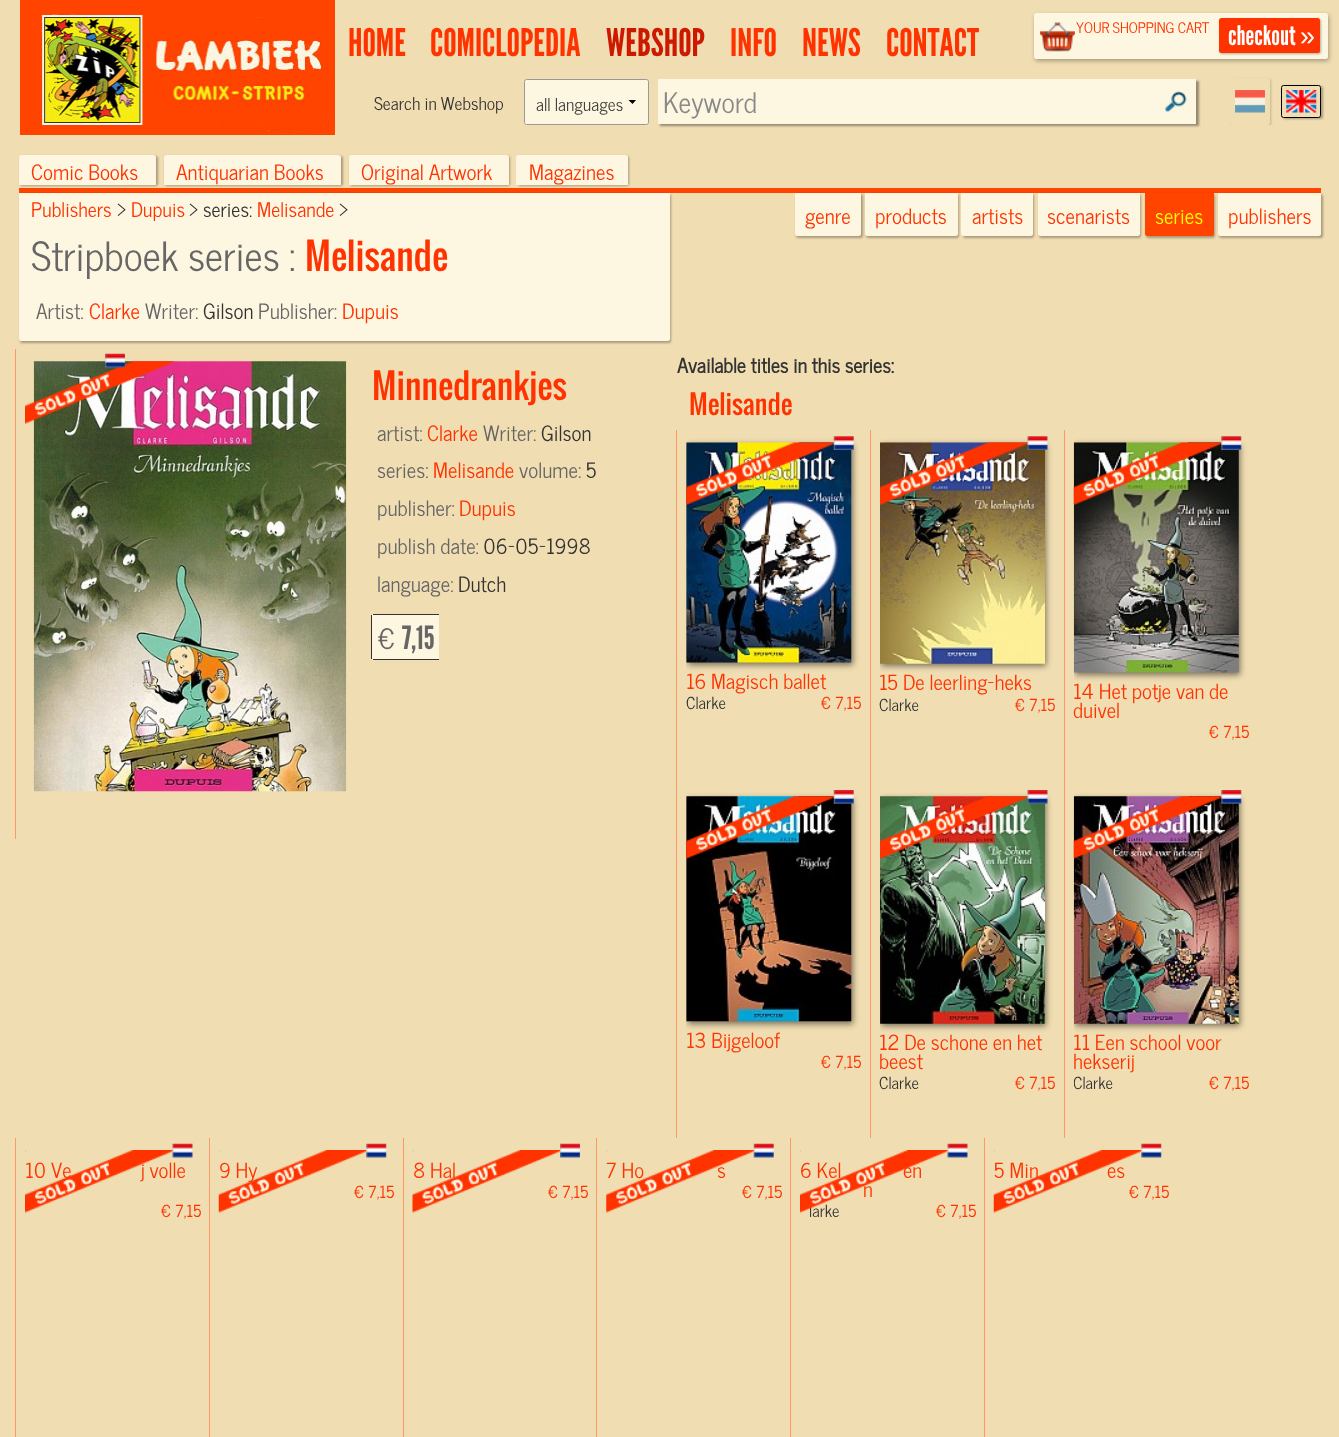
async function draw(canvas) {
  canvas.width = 1339;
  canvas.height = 1437;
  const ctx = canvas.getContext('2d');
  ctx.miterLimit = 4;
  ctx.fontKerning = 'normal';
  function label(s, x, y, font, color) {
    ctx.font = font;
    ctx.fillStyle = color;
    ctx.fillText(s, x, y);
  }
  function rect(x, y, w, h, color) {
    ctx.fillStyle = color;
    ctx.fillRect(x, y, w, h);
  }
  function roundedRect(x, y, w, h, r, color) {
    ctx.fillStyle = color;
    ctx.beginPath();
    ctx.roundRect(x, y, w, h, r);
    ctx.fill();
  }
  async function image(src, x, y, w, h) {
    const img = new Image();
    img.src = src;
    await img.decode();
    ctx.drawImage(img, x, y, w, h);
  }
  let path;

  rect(0, 0, 1339, 1437, '#f0ddb2');
  await image('assets/img1.png', 20, 0, 315, 135);
  label('HOME', 348, 56, '38px League Gothic', '#f30');
  label('COMICLOPEDIA', 430, 56, '38px League Gothic', '#f30');
  label('WEBSHOP', 606, 56, '38px League Gothic', '#cc1900');
  label('INFO', 730, 56, '38px League Gothic', '#f30');
  label('NEWS', 802, 56, '38px League Gothic', '#f30');
  label('CONTACT', 886, 56, '38px League Gothic', '#f30');
  label('Search in Webshop', 374, 110, '500 17.5px News Cycle', '#333');
  roundedRect(524, 79, 125, 46, 2.5, '#fdf6e1');
  ctx.fillStyle = '#000';
  path = new Path2D('M636 100L632.5 104L628.5 100Z');
  ctx.fill(path);
  ctx.beginPath();
  ctx.roundRect(524.5, 79.5, 124, 45, 2);
  ctx.strokeStyle = '#999';
  ctx.stroke();
  label('all languages', 536, 111, '500 17.5px News Cycle', '#3f3e38');
  ctx.fillStyle = '#0a0a0a66';
  ctx.filter = 'blur(1px)';
  ctx.beginPath();
  ctx.rect(660, 81, 539, 45);
  ctx.fill();
  ctx.filter = 'none';
  rect(658, 79, 538, 45, '#fdf6e1');
  await image('assets/img2.png', 1165, 91, 22, 21);
  label('Keyword', 663, 113, '500 28px News Cycle', '#888');
  ctx.fillStyle = '#0000004d';
  ctx.filter = 'blur(2px)';
  ctx.beginPath();
  ctx.roundRect(1035, 15, 294, 46, 2.5);
  ctx.fill();
  ctx.filter = 'none';
  roundedRect(1034, 13, 294, 46, 2.5, '#fdf6e1');
  await image('assets/img3.png', 1040, 22, 35, 30);
  label('YOUR SHOPPING CART', 1076, 33, '500 14.5px News Cycle', '#f30');
  ctx.fillStyle = '#0000004d';
  ctx.filter = 'blur(1px)';
  ctx.beginPath();
  ctx.roundRect(1220, 19, 101, 35, 2.5);
  ctx.fill();
  ctx.filter = 'none';
  roundedRect(1219, 18, 101, 35, 2.5, '#f30');
  label('checkout', 1228, 45, '27px League Gothic', '#fff');
  label('»', 1300, 45, '27px Liberation Sans', '#fff');
  ctx.save();
  ctx.beginPath();
  ctx.rect(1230, 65, 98, 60);
  ctx.clip();
  path = new Path2D('M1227 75H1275V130H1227ZM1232.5 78H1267.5C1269 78 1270 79 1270 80.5V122.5C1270 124 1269 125 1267.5 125H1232.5C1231 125 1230 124 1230 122.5V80.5C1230 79 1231 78 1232.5 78Z');
  ctx.clip(path, 'evenodd');
  ctx.fillStyle = '#6058474d';
  ctx.filter = 'blur(1px)';
  ctx.beginPath();
  ctx.roundRect(1231, 79, 40, 47, 2.5);
  ctx.fill();
  ctx.filter = 'none';
  ctx.restore();
  await image('assets/img4.png', 1235, 90, 30, 23);
  ctx.save();
  path = new Path2D('M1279 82H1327V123H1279ZM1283.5 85H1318.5C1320 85 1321 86 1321 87.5V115.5C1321 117 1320 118 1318.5 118H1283.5C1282 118 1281 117 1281 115.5V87.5C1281 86 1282 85 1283.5 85Z');
  ctx.clip(path, 'evenodd');
  ctx.fillStyle = '#0000004d';
  ctx.filter = 'blur(1px)';
  ctx.beginPath();
  ctx.roundRect(1283, 86, 40, 33, 2.5);
  ctx.fill();
  ctx.filter = 'none';
  ctx.restore();
  await image('assets/img5.png', 1286, 90, 31, 23);
  ctx.beginPath();
  ctx.roundRect(1281.5, 85.5, 39, 32, 2);
  ctx.strokeStyle = '#000';
  ctx.stroke();
  rect(19, 188, 1302, 5, '#f40');
  ctx.fillStyle = '#0000004d';
  ctx.filter = 'blur(1px)';
  ctx.beginPath();
  ctx.roundRect(20, 156, 138, 30, 2.5);
  ctx.fill();
  ctx.filter = 'none';
  ctx.fillStyle = '#fdf6e1';
  ctx.beginPath();
  ctx.roundRect(19, 155, 137, 30, [2.5, 2.5, 0, 0]);
  ctx.fill();
  label('Comic Books', 31, 180, '500 21px News Cycle', '#f30');
  ctx.fillStyle = '#0000004d';
  ctx.filter = 'blur(1px)';
  ctx.beginPath();
  ctx.roundRect(165, 156, 178, 30, 2.5);
  ctx.fill();
  ctx.filter = 'none';
  ctx.fillStyle = '#fdf6e1';
  ctx.beginPath();
  ctx.roundRect(164, 155, 177, 30, [2.5, 2.5, 0, 0]);
  ctx.fill();
  label('Antiquarian Books', 176, 180, '500 21px News Cycle', '#f30');
  ctx.fillStyle = '#0000004d';
  ctx.filter = 'blur(1px)';
  ctx.beginPath();
  ctx.roundRect(350, 156, 160, 30, 2.5);
  ctx.fill();
  ctx.filter = 'none';
  ctx.fillStyle = '#fdf6e1';
  ctx.beginPath();
  ctx.roundRect(349, 155, 160, 30, [2.5, 2.5, 0, 0]);
  ctx.fill();
  label('Original Artwork', 361, 180, '500 21px News Cycle', '#f30');
  ctx.fillStyle = '#0000004d';
  ctx.filter = 'blur(1px)';
  ctx.beginPath();
  ctx.roundRect(518, 156, 111, 30, 2.5);
  ctx.fill();
  ctx.filter = 'none';
  ctx.fillStyle = '#fdf6e1';
  ctx.beginPath();
  ctx.roundRect(516, 155, 112, 30, [2.5, 2.5, 0, 0]);
  ctx.fill();
  label('Magazines', 529, 180, '500 21px News Cycle', '#f30');
  ctx.fillStyle = '#0000004d';
  ctx.filter = 'blur(1px)';
  ctx.beginPath();
  ctx.roundRect(796, 194, 67, 44, 2.5);
  ctx.fill();
  ctx.filter = 'none';
  ctx.fillStyle = '#fdf6e1';
  ctx.beginPath();
  ctx.roundRect(795, 193, 66, 43, [0, 0, 2.5, 2.5]);
  ctx.fill();
  label('genre', 805, 224, '500 21px News Cycle', '#f30');
  ctx.fillStyle = '#0000004d';
  ctx.filter = 'blur(1px)';
  ctx.beginPath();
  ctx.roundRect(866, 194, 93, 44, 2.5);
  ctx.fill();
  ctx.filter = 'none';
  ctx.fillStyle = '#fdf6e1';
  ctx.beginPath();
  ctx.roundRect(865, 193, 93, 43, [0, 0, 2.5, 2.5]);
  ctx.fill();
  label('products', 875, 224, '500 21px News Cycle', '#f30');
  ctx.fillStyle = '#0000004d';
  ctx.filter = 'blur(1px)';
  ctx.beginPath();
  ctx.roundRect(963, 194, 71, 44, 2.5);
  ctx.fill();
  ctx.filter = 'none';
  ctx.fillStyle = '#fdf6e1';
  ctx.beginPath();
  ctx.roundRect(961, 193, 72, 43, [0, 0, 2.5, 2.5]);
  ctx.fill();
  label('artists', 972, 224, '500 21px News Cycle', '#f30');
  ctx.fillStyle = '#0000004d';
  ctx.filter = 'blur(1px)';
  ctx.beginPath();
  ctx.roundRect(1039, 194, 102, 44, 2.5);
  ctx.fill();
  ctx.filter = 'none';
  ctx.fillStyle = '#fdf6e1';
  ctx.beginPath();
  ctx.roundRect(1038, 193, 102, 43, [0, 0, 2.5, 2.5]);
  ctx.fill();
  label('scenarists', 1047, 224, '500 21px News Cycle', '#f30');
  ctx.fillStyle = '#0000004d';
  ctx.filter = 'blur(1px)';
  ctx.beginPath();
  ctx.roundRect(1146, 194, 69, 44, 2.5);
  ctx.fill();
  ctx.filter = 'none';
  ctx.fillStyle = '#f40';
  ctx.beginPath();
  ctx.roundRect(1145, 193, 69, 43, [0, 0, 2.5, 2.5]);
  ctx.fill();
  label('series', 1155, 224, '500 21px News Cycle', '#ff0');
  ctx.fillStyle = '#0000004d';
  ctx.filter = 'blur(1px)';
  ctx.beginPath();
  ctx.roundRect(1219, 194, 104, 44, 2.5);
  ctx.fill();
  ctx.filter = 'none';
  ctx.fillStyle = '#fdf6e1';
  ctx.beginPath();
  ctx.roundRect(1218, 193, 103, 43, [0, 0, 2.5, 2.5]);
  ctx.fill();
  label('publishers', 1228, 224, '500 21px News Cycle', '#f30');
  ctx.fillStyle = '#0000004d';
  ctx.filter = 'blur(1px)';
  ctx.beginPath();
  ctx.roundRect(20, 194, 651, 149, 2.5);
  ctx.fill();
  ctx.filter = 'none';
  ctx.fillStyle = '#fdf6e1';
  ctx.beginPath();
  ctx.roundRect(19, 193, 651, 148, [0, 0, 2.5, 2.5]);
  ctx.fill();
  label('Publishers', 31, 217, '500 20px News Cycle', '#f30');
  label('>', 117, 217, '500 20px News Cycle', '#333');
  label('Dupuis', 131, 217, '500 20px News Cycle', '#f30');
  label('> series:', 189, 217, '500 20px News Cycle', '#333');
  label('Melisande', 257, 217, '500 20px News Cycle', '#f30');
  label('>', 339, 217, '500 20px News Cycle', '#333');
  label('Stripboek series :', 31, 271, '500 40px News Cycle', '#666');
  label('Melisande', 305, 271, '36px Oswald', '#f30');
  label('Artist:', 36, 319, '500 21px News Cycle', '#666');
  label('Clarke', 89, 319, '500 21px News Cycle', '#f30');
  label('Writer:', 145, 319, '500 21px News Cycle', '#666');
  label('Gilson', 203, 319, '500 21px News Cycle', '#333');
  label('Publisher:', 258, 319, '500 21px News Cycle', '#666');
  label('Dupuis', 342, 319, '500 21px News Cycle', '#f30');
  label('Available titles in this series:', 677, 373, 'bold 20px News Cycle', '#333');
  rect(15, 349, 1, 490, '#f96');
  await image('assets/img8.png', 33, 361, 314, 431);
  await image('assets/img7.png', 25, 361, 150, 63);
  await image('assets/img6.png', 105, 353, 20, 15);
  label('Minnedrankjes', 372, 400, '34px Oswald', '#f30');
  label('artist:', 377, 441, '500 21px News Cycle', '#666');
  label('Clarke', 427, 441, '500 21px News Cycle', '#f30');
  label('Writer:', 483, 441, '500 21px News Cycle', '#666');
  label('Gilson', 541, 441, '500 21px News Cycle', '#333');
  label('series:', 377, 478, '500 21px News Cycle', '#666');
  label('Melisande', 433, 478, '500 21px News Cycle', '#f30');
  label('volume:', 519, 478, '500 21px News Cycle', '#666');
  label('5', 586, 478, '500 21px News Cycle', '#333');
  label('publisher:', 377, 516, '500 21px News Cycle', '#666');
  label('Dupuis', 459, 516, '500 21px News Cycle', '#f30');
  label('publish date:', 377, 554, '500 21px News Cycle', '#666');
  label('06-05-1998', 483, 554, '500 21px News Cycle', '#333');
  label('language:', 377, 592, '500 21px News Cycle', '#666');
  label('Dutch', 458, 592, '500 21px News Cycle', '#333');
  ctx.fillStyle = '#fdf6e1';
  ctx.beginPath();
  ctx.roundRect(371, 614, 68, 46, [2.5, 0, 0, 2.5]);
  ctx.fill();
  rect(373, 614, 66, 1, '#333');
  rect(373, 659, 66, 1, '#333');
  rect(371, 615, 1, 44, '#333');
  label('€', 378, 649, '500 28px News Cycle', '#666');
  label('7,15', 402, 649, '32px League Gothic', '#666');
  label('Melisande', 689, 415, '26px Oswald', '#f30');
  rect(676, 430, 1, 708, '#f96');
  ctx.save();
  ctx.beginPath();
  ctx.rect(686, 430, 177, 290);
  ctx.clip();
  ctx.fillStyle = '#00000080';
  ctx.filter = 'blur(3px)';
  ctx.beginPath();
  ctx.rect(688, 445, 165, 220);
  ctx.fill();
  ctx.filter = 'none';
  ctx.restore();
  await image('assets/img9.png', 686, 442, 166, 221);
  await image('assets/img10.png', 686, 442, 148, 63);
  await image('assets/img11.png', 833, 436, 21, 14);
  label('16 Magisch ballet', 686, 689, '500 20.75px News Cycle', '#f30');
  label('Clarke', 686, 709, '500 16.5px News Cycle', '#333');
  label('€ 7,15', 821, 709, '500 16.5px News Cycle', '#f30');
  rect(870, 430, 1, 708, '#f96');
  ctx.save();
  ctx.beginPath();
  ctx.rect(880, 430, 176, 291);
  ctx.clip();
  ctx.fillStyle = '#00000080';
  ctx.filter = 'blur(3px)';
  ctx.beginPath();
  ctx.rect(881, 445, 165, 221);
  ctx.fill();
  ctx.filter = 'none';
  ctx.restore();
  await image('assets/img12.png', 880, 442, 165, 222);
  await image('assets/img13.png', 880, 442, 148, 63);
  await image('assets/img14.png', 1027, 436, 21, 14);
  label('15 De leerling-heks', 879, 690, '500 20.75px News Cycle', '#f30');
  label('Clarke', 879, 711, '500 16.5px News Cycle', '#333');
  label('€ 7,15', 1015, 711, '500 16.5px News Cycle', '#f30');
  rect(1064, 430, 1, 708, '#f96');
  ctx.save();
  ctx.beginPath();
  ctx.rect(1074, 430, 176, 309);
  ctx.clip();
  ctx.fillStyle = '#00000080';
  ctx.filter = 'blur(3px)';
  ctx.beginPath();
  ctx.rect(1075, 445, 165, 230);
  ctx.fill();
  ctx.filter = 'none';
  ctx.restore();
  await image('assets/img15.png', 1073, 442, 166, 231);
  await image('assets/img16.png', 1073, 442, 149, 63);
  await image('assets/img17.png', 1221, 436, 21, 14);
  label('14 Het potje van de', 1073, 699, '500 20.75px News Cycle', '#f30');
  label('duivel', 1073, 718, '500 20.75px News Cycle', '#f30');
  label('€ 7,15', 1209, 738, '500 16.5px News Cycle', '#f30');
  ctx.save();
  ctx.beginPath();
  ctx.rect(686, 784, 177, 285);
  ctx.clip();
  ctx.fillStyle = '#00000080';
  ctx.filter = 'blur(3px)';
  ctx.beginPath();
  ctx.rect(688, 799, 165, 225);
  ctx.fill();
  ctx.filter = 'none';
  ctx.restore();
  await image('assets/img18.png', 686, 796, 166, 226);
  await image('assets/img19.png', 686, 796, 148, 63);
  await image('assets/img20.png', 833, 790, 21, 14);
  label('13 Bijgeloof', 686, 1048, '500 20.75px News Cycle', '#f30');
  label('€ 7,15', 821, 1068, '500 16.5px News Cycle', '#f30');
  ctx.save();
  ctx.beginPath();
  ctx.rect(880, 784, 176, 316);
  ctx.clip();
  ctx.fillStyle = '#00000080';
  ctx.filter = 'blur(3px)';
  ctx.beginPath();
  ctx.rect(881, 799, 165, 227);
  ctx.fill();
  ctx.filter = 'none';
  ctx.restore();
  await image('assets/img21.png', 880, 796, 165, 228);
  await image('assets/img22.png', 880, 796, 148, 63);
  await image('assets/img23.png', 1027, 790, 21, 14);
  label('12 De schone en het', 879, 1050, '500 20.75px News Cycle', '#f30');
  label('beest', 879, 1069, '500 20.75px News Cycle', '#f30');
  label('Clarke', 879, 1089, '500 16.5px News Cycle', '#333');
  label('€ 7,15', 1015, 1089, '500 16.5px News Cycle', '#f30');
  ctx.save();
  ctx.beginPath();
  ctx.rect(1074, 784, 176, 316);
  ctx.clip();
  ctx.fillStyle = '#00000080';
  ctx.filter = 'blur(3px)';
  ctx.beginPath();
  ctx.rect(1075, 799, 165, 227);
  ctx.fill();
  ctx.filter = 'none';
  ctx.restore();
  await image('assets/img24.png', 1073, 796, 166, 228);
  await image('assets/img25.png', 1073, 796, 149, 63);
  await image('assets/img26.png', 1221, 790, 21, 14);
  label('11 Een school voor', 1073, 1050, '500 20.75px News Cycle', '#f30');
  label('hekserij', 1073, 1069, '500 20.75px News Cycle', '#f30');
  ctx.save();
  ctx.beginPath();
  ctx.rect(1074, 784, 176, 316);
  ctx.clip();
  label('Clarke', 1073, 1089, '500 16.5px News Cycle', '#333');
  ctx.restore();
  label('€ 7,15', 1209, 1089, '500 16.5px News Cycle', '#f30');
  rect(15, 1138, 1, 299, '#f96');
  await image('assets/img27.png', 25, 1150, 2, 2);
  label('10 Ve', 25, 1178, '500 20.75px News Cycle', '#f30');
  label('j volle', 141, 1178, '500 20.75px News Cycle', '#f30');
  label('€ 7,15', 161, 1217, '500 16.5px News Cycle', '#f30');
  await image('assets/img29.png', 25, 1150, 148, 63);
  await image('assets/img28.png', 172, 1143, 21, 15);
  rect(209, 1138, 1, 299, '#f96');
  await image('assets/img32.png', 219, 1150, 1, 2);
  label('9 Hy', 219, 1178, '500 20.75px News Cycle', '#f30');
  label('€ 7,15', 354, 1198, '500 16.5px News Cycle', '#f30');
  await image('assets/img30.png', 218, 1150, 149, 63);
  await image('assets/img31.png', 366, 1143, 21, 15);
  rect(403, 1138, 1, 299, '#f96');
  await image('assets/img33.png', 412, 1150, 2, 2);
  await image('assets/img34.png', 560, 1143, 20, 15);
  label('8 Hal', 413, 1178, '500 20.75px News Cycle', '#f30');
  label('€ 7,15', 548, 1198, '500 16.5px News Cycle', '#f30');
  await image('assets/img35.png', 412, 1150, 148, 63);
  rect(596, 1138, 1, 299, '#f96');
  await image('assets/img36.png', 606, 1150, 2, 2);
  label('7 Ho', 606, 1178, '500 20.75px News Cycle', '#f30');
  label('s', 717, 1178, '500 20.75px News Cycle', '#f30');
  label('€ 7,15', 742, 1198, '500 16.5px News Cycle', '#f30');
  await image('assets/img38.png', 606, 1150, 148, 63);
  await image('assets/img37.png', 753, 1143, 21, 15);
  rect(790, 1138, 1, 299, '#f96');
  await image('assets/img27.png', 800, 1150, 2, 2);
  label('6 Kel', 800, 1178, '500 20.75px News Cycle', '#f30');
  label('en', 903, 1178, '500 20.75px News Cycle', '#f30');
  label('n', 863, 1197, '500 20.75px News Cycle', '#f30');
  label('larke', 809, 1217, '500 16.5px News Cycle', '#333');
  label('€ 7,15', 936, 1217, '500 16.5px News Cycle', '#f30');
  await image('assets/img40.png', 800, 1150, 148, 63);
  await image('assets/img39.png', 947, 1143, 21, 15);
  rect(984, 1138, 1, 299, '#f96');
  await image('assets/img32.png', 994, 1150, 1, 2);
  label('5 Min', 994, 1178, '500 20.75px News Cycle', '#f30');
  label('es', 1107, 1178, '500 20.75px News Cycle', '#f30');
  label('€ 7,15', 1129, 1198, '500 16.5px News Cycle', '#f30');
  await image('assets/img41.png', 993, 1150, 149, 63);
  await image('assets/img31.png', 1141, 1143, 21, 15);
}

draw(document.querySelector('canvas'));
